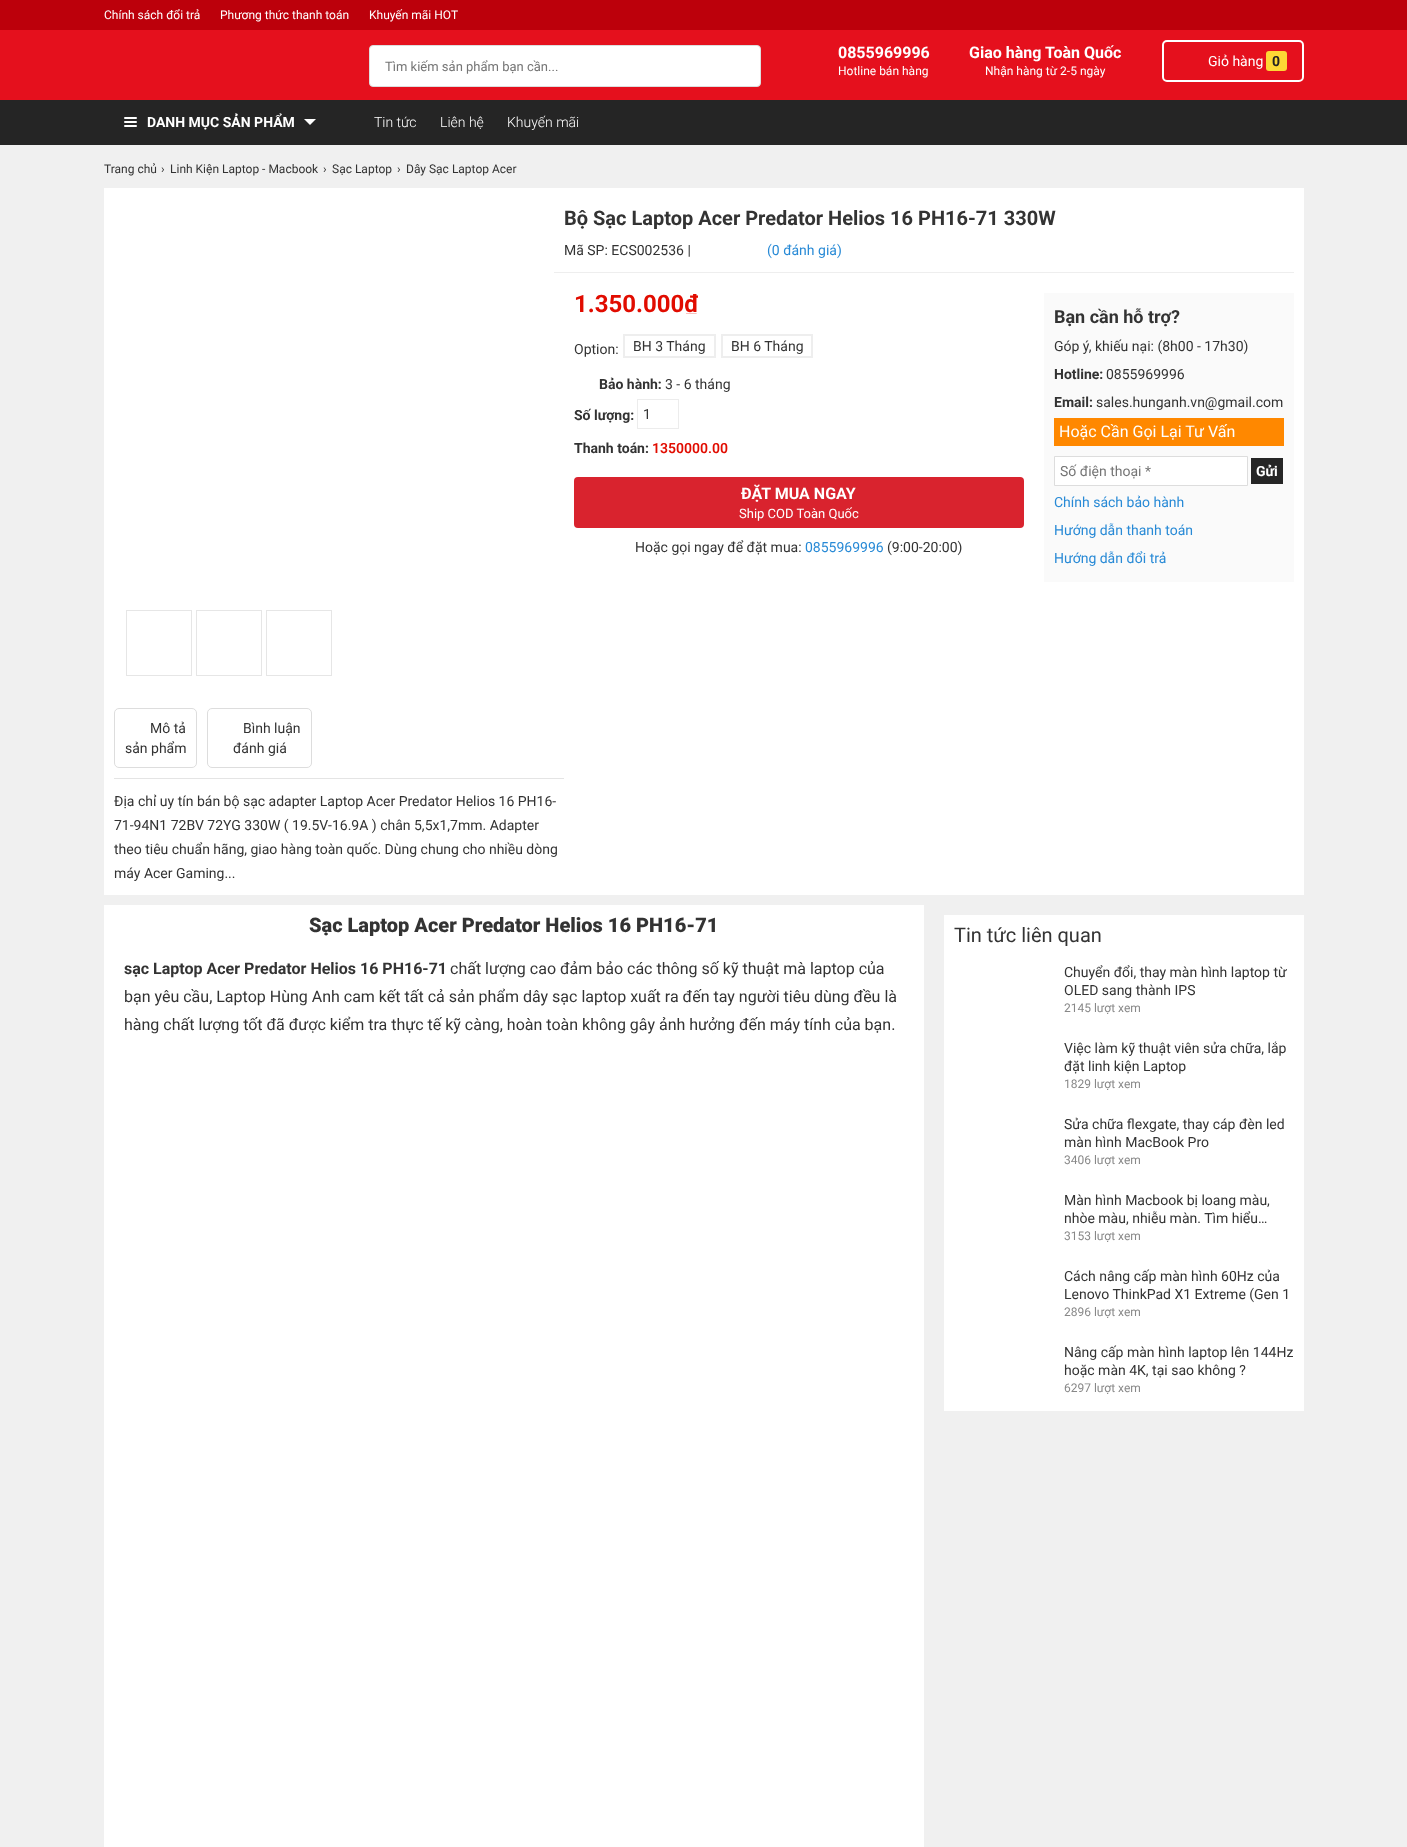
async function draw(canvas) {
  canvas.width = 1407;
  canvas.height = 1847;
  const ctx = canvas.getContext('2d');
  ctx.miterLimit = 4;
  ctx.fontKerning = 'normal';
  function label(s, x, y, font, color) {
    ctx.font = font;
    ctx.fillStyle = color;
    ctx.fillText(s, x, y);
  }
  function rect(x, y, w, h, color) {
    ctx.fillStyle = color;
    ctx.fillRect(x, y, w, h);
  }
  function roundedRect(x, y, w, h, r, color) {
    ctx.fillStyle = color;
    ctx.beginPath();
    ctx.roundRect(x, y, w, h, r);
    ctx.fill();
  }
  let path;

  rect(0, 0, 1407, 1847, '#f0f0f0');
  rect(0, 0, 1407, 30, '#bc000b');
  label('Chính sách đổi trả', 104, 19, '12px Roboto', '#fff');
  label('Phương thức thanh toán', 220, 19, '12px Roboto', '#fff');
  label('Khuyến mãi HOT', 369, 19, '12px Roboto', '#fff');
  rect(0, 30, 1407, 70, '#e5101d');
  ctx.fillStyle = '#fff';
  ctx.beginPath();
  ctx.roundRect(369.5, 45.5, 391, 41, 3.5);
  ctx.fill();
  ctx.strokeStyle = '#ddd';
  ctx.stroke();
  label('Tìm kiếm sản phẩm bạn cần...', 385, 71, '13px Roboto', '#757575');
  label('0855969996', 838, 58, 'bold 16px Roboto', '#fff');
  label('Hotline bán hàng', 838, 75, '12px Roboto', '#fff');
  label('Giao hàng Toàn Quốc', 969, 58, 'bold 16px Roboto', '#fff');
  label('Nhận hàng từ 2-5 ngày', 985, 75, '12px Roboto', '#fff');
  ctx.beginPath();
  ctx.roundRect(1163, 41, 140, 40, 4);
  ctx.strokeStyle = '#fff';
  ctx.lineWidth = 2;
  ctx.stroke();
  label('Giỏ hàng', 1208, 66, '14px Roboto', '#fff');
  roundedRect(1266, 51, 21, 20, 3, '#fdd835');
  label('0', 1272, 66, 'bold 14px Roboto', '#222');
  rect(0, 100, 1407, 45, '#252525');
  roundedRect(124, 117, 13, 2, 1, '#fff');
  roundedRect(124, 121, 13, 2, 1, '#fff');
  roundedRect(124, 125, 13, 2, 1, '#fff');
  label('DANH MỤC SẢN PHẨM', 147, 127, 'bold 14px Roboto', '#fff');
  path = new Path2D('M304 119H316L310 125Z');
  ctx.fill(path);
  label('Tin tức', 374, 127, '300 14px Roboto', '#fff');
  label('Liên hệ', 440, 127, '300 14px Roboto', '#fff');
  label('Khuyến mãi', 507, 127, '300 14px Roboto', '#fff');
  label('Trang chủ', 104, 173, '12px Roboto', '#333');
  label('›', 161, 173, '12px Roboto', '#333');
  label('Linh Kiện Laptop - Macbook', 170, 173, '12px Roboto', '#333');
  label('›', 323, 173, '12px Roboto', '#333');
  label('Sạc Laptop', 332, 173, '12px Roboto', '#333');
  label('›', 397, 173, '12px Roboto', '#333');
  label('Dây Sạc Laptop Acer', 406, 173, '12px Roboto', '#333');
  rect(104, 188, 1200, 707, '#fff');
  rect(554, 272, 740, 1, '#eee');
  label('Bộ Sạc Laptop Acer Predator Helios 16 PH16-71 330W', 564, 225, 'bold 20px Roboto', '#333');
  label('Mã SP: ECS002536 |', 564, 255, '14px Roboto', '#333');
  label('(0 đánh giá)', 767, 255, '14px Roboto', '#288ad6');
  ctx.save();
  ctx.beginPath();
  ctx.rect(574, 294, 124, 20);
  ctx.clip();
  label('1.350.000₫', 574, 312, 'bold 24px Roboto', '#e10c00');
  ctx.restore();
  label('Option:', 574, 354, '14px Roboto', '#333');
  ctx.strokeStyle = '#eee';
  ctx.strokeRect(624, 335, 91, 22);
  label('BH 3 Tháng', 633, 351, '14px Roboto', '#333');
  ctx.strokeRect(722, 335, 90, 22);
  label('BH 6 Tháng', 731, 351, '14px Roboto', '#333');
  label('Bảo hành:', 599, 389, 'bold 14px Roboto', '#333');
  label('3 - 6 tháng', 665, 389, '14px Roboto', '#333');
  label('Số lượng:', 574, 420, 'bold 14px Roboto', '#333');
  ctx.strokeStyle = '#ececec';
  ctx.lineWidth = 1;
  ctx.strokeRect(637.5, 399.5, 41, 29);
  label('1', 643, 419, '14px Roboto', '#333');
  label('Thanh toán:', 574, 453, 'bold 14px Roboto', '#333');
  label('1350000.00', 652, 453, '600 14px Roboto', '#e10c00');
  roundedRect(574, 477, 450, 51, 4, '#d9232e');
  label('ĐẶT MUA NGAY', 741, 499, 'bold 16px Roboto', '#fff');
  label('Ship COD Toàn Quốc', 739, 518, '13px Roboto', '#fff');
  label('Hoặc gọi ngay để đặt mua:', 635, 552, '14px Roboto', '#333');
  label('0855969996', 805, 552, '14px Roboto', '#288ad6');
  label('(9:00-20:00)', 887, 552, '14px Roboto', '#333');
  rect(1044, 293, 250, 289, '#fafafa');
  label('Bạn cần hỗ trợ?', 1054, 323, 'bold 18px Roboto', '#333');
  label('Góp ý, khiếu nại: (8h00 - 17h30)', 1054, 351, '14px Roboto', '#333');
  label('Hotline:', 1054, 379, 'bold 14px Roboto', '#333');
  label('0855969996', 1106, 379, '14px Roboto', '#333');
  label('Email:', 1054, 407, 'bold 14px Roboto', '#333');
  label('sales.hunganh.vn@gmail.com', 1096, 407, '14px Roboto', '#333');
  rect(1054, 418, 230, 28, '#f80');
  label('Hoặc Cần Gọi Lại Tư Vấn', 1059, 437, '16px Roboto', '#fff');
  ctx.beginPath();
  ctx.rect(1054.5, 456.5, 193, 29);
  ctx.fill();
  ctx.strokeStyle = '#ddd';
  ctx.stroke();
  label('Số điện thoại *', 1060, 476, '14px Roboto', '#757575');
  rect(1251, 458, 32, 26, '#252525');
  label('Gửi', 1256, 476, 'bold 14px Roboto', '#fff');
  label('Chính sách bảo hành', 1054, 507, '14px Roboto', '#288ad6');
  label('Hướng dẫn thanh toán', 1054, 535, '14px Roboto', '#288ad6');
  label('Hướng dẫn đổi trả', 1054, 563, '14px Roboto', '#288ad6');
  ctx.strokeStyle = '#e6e6e6';
  ctx.strokeRect(126.5, 610.5, 65, 65);
  ctx.strokeRect(196.5, 610.5, 65, 65);
  ctx.strokeRect(266.5, 610.5, 65, 65);
  ctx.beginPath();
  ctx.roundRect(114.5, 708.5, 82, 59, 4.5);
  ctx.strokeStyle = '#ddd';
  ctx.stroke();
  label('Mô tả', 150, 733, '14px Roboto', '#333');
  label('sản phẩm', 125, 753, '14px Roboto', '#333');
  ctx.beginPath();
  ctx.roundRect(207.5, 708.5, 104, 59, 4.5);
  ctx.stroke();
  label('Bình luận', 243, 733, '14px Roboto', '#333');
  label('đánh giá', 233, 753, '14px Roboto', '#333');
  rect(114, 778, 450, 1, '#e4e4e4');
  label('Địa chỉ uy tín bán bộ sạc adapter Laptop Acer Predator Helios 16 PH16-', 114, 806, '14px Roboto', '#333');
  label('71-94N1 72BV 72YG 330W ( 19.5V-16.9A ) chân 5,5x1,7mm. Adapter', 114, 830, '14px Roboto', '#333');
  label('theo tiêu chuẩn hãng, giao hàng toàn quốc. Dùng chung cho nhiều dòng', 114, 854, '14px Roboto', '#333');
  label('máy Acer Gaming...', 114, 878, '14px Roboto', '#333');
  rect(104, 905, 820, 942, '#fff');
  label('Sạc Laptop Acer Predator Helios 16 PH16-71', 309, 932, '900 20px Roboto', '#333');
  label('sạc Laptop Acer Predator Helios 16 PH16-71', 124, 974, 'bold 16px Roboto', '#333');
  label('chất lượng cao đảm bảo các thông số kỹ thuật mà laptop của', 450, 974, '16px Roboto', '#333');
  label('bạn yêu cầu, Laptop Hùng Anh cam kết tất cả sản phẩm dây sạc laptop xuất ra đến tay người tiêu dùng đều là', 124, 1002, '16px Roboto', '#333');
  label('hàng chất lượng tốt đã được kiểm tra thực tế kỹ càng, hoàn toàn không gây ảnh hưởng đến máy tính của bạn.', 124, 1030, '16px Roboto', '#333');
  rect(944, 915, 360, 496, '#fff');
  label('Tin tức liên quan', 954, 942, '20px Roboto', '#333');
  label('Chuyển đổi, thay màn hình laptop từ', 1064, 977, '14px Roboto', '#333');
  label('OLED sang thành IPS', 1064, 995, '14px Roboto', '#333');
  label('2145 lượt xem', 1064, 1012, '12px Roboto', '#888');
  label('Việc làm kỹ thuật viên sửa chữa, lắp', 1064, 1053, '14px Roboto', '#333');
  label('đặt linh kiện Laptop', 1064, 1071, '14px Roboto', '#333');
  label('1829 lượt xem', 1064, 1088, '12px Roboto', '#888');
  label('Sửa chữa flexgate, thay cáp đèn led', 1064, 1129, '14px Roboto', '#333');
  label('màn hình MacBook Pro', 1064, 1147, '14px Roboto', '#333');
  label('3406 lượt xem', 1064, 1164, '12px Roboto', '#888');
  label('Màn hình Macbook bị loang màu,', 1064, 1205, '14px Roboto', '#333');
  label('nhòe màu, nhiễu màn. Tìm hiểu…', 1064, 1223, '14px Roboto', '#333');
  label('3153 lượt xem', 1064, 1240, '12px Roboto', '#888');
  label('Cách nâng cấp màn hình 60Hz của', 1064, 1281, '14px Roboto', '#333');
  label('Lenovo ThinkPad X1 Extreme (Gen 1', 1064, 1299, '14px Roboto', '#333');
  label('2896 lượt xem', 1064, 1316, '12px Roboto', '#888');
  label('Nâng cấp màn hình laptop lên 144Hz', 1064, 1357, '14px Roboto', '#333');
  label('hoặc màn 4K, tại sao không ?', 1064, 1375, '14px Roboto', '#333');
  label('6297 lượt xem', 1064, 1392, '12px Roboto', '#888');
}

draw(document.querySelector('canvas'));
